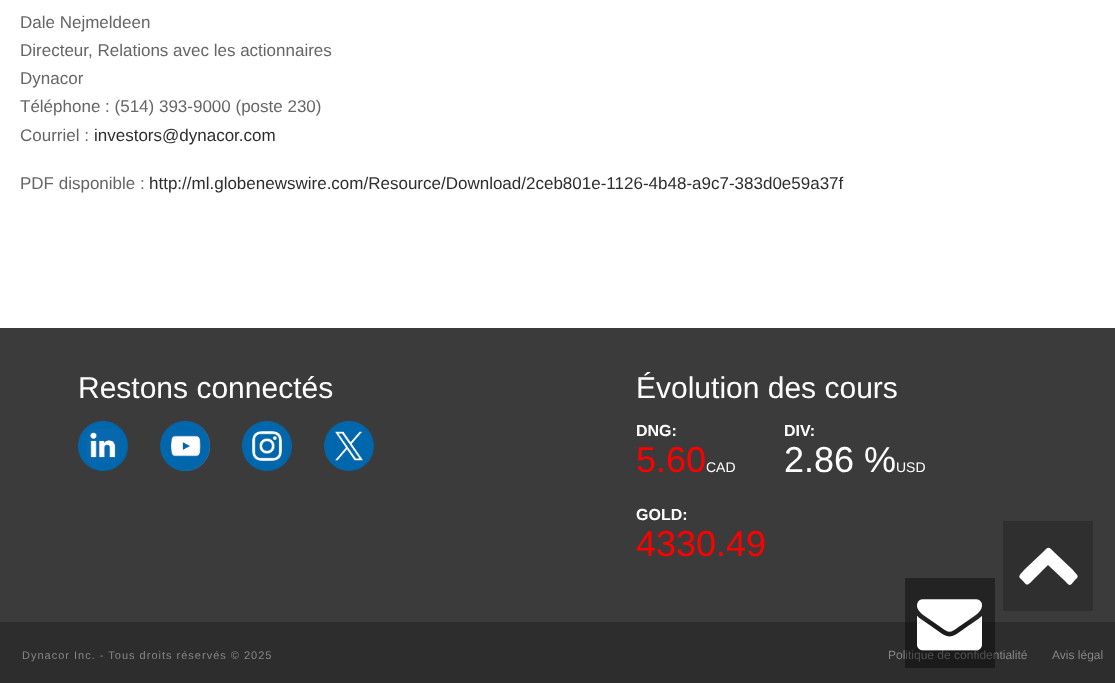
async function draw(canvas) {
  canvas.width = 1115;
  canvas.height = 683;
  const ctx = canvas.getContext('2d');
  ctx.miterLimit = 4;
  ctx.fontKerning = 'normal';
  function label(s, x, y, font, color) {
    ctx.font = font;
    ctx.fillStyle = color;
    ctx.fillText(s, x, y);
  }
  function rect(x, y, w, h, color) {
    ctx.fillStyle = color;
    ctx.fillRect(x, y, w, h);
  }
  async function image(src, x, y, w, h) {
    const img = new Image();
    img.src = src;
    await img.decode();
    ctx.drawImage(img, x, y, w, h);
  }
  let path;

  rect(0, 0, 1115, 683, '#fff');
  label('Dale Nejmeldeen', 20, 28, '17px Liberation Sans', '#666');
  label('Directeur, Relations avec les actionnaires', 20, 56, '17px Liberation Sans', '#666');
  label('Dynacor', 20, 84, '17px Liberation Sans', '#666');
  label('Téléphone : (514) 393-9000 (poste 230)', 20, 112, '17px Liberation Sans', '#666');
  label('Courriel :', 20, 141, '17px Liberation Sans', '#666');
  label('investors@dynacor.com', 94, 141, '17px Liberation Sans', '#2e2e2e');
  label('PDF disponible :', 20, 189, '17px Liberation Sans', '#666');
  label('http://ml.globenewswire.com/Resource/Download/2ceb801e-1126-4b48-a9c7-383d0e59a37f', 149, 189, '17px Liberation Sans', '#2e2e2e');
  rect(0, 328, 1115, 294, '#3b3b3b');
  label('Restons connectés', 78, 398, '30px Liberation Sans', '#fff');
  await image('assets/img1.png', 78, 421, 50, 50);
  await image('assets/img2.png', 160, 421, 50, 50);
  await image('assets/img3.png', 242, 421, 50, 50);
  await image('assets/img4.png', 324, 421, 50, 50);
  label('Évolution des cours', 636, 398, '30px Liberation Sans', '#fff');
  label('DNG:', 636, 436, 'bold 16px Liberation Sans', '#fff');
  label('5.60', 636, 472, '36px Liberation Sans', '#f00');
  label('CAD', 706, 472, '14px Liberation Sans', '#fff');
  label('DIV:', 784, 436, 'bold 16px Liberation Sans', '#fff');
  label('2.86 %', 784, 472, '36px Liberation Sans', '#fff');
  label('USD', 896, 472, '14px Liberation Sans', '#fff');
  label('GOLD:', 636, 520, 'bold 16px Liberation Sans', '#fff');
  label('4330.49', 636, 556, '36px Liberation Sans', '#f00');
  rect(0, 622, 1115, 61, '#2d2d2d');
  ctx.letterSpacing = '1px';
  label('Dynacor Inc. - Tous droits réservés © 2025', 22, 659, '11px Liberation Sans', '#868686');
  ctx.letterSpacing = '0px';
  label('Politique de confidentialité', 888, 659, '12px Liberation Sans', '#868686');
  label('Avis légal', 1052, 659, '12px Liberation Sans', '#868686');
  rect(1003, 521, 90, 90, '#2f2f2f');
  ctx.fillStyle = '#fff';
  path = new Path2D('M1077 578C1070 585 1071 588 1065 581L1048 565L1032 581C1026 587 1027 585 1021 579C1017 576 1021 574 1024 570L1042 553C1049 546 1048 546 1055 553L1073 570C1073 571 1080 576 1077 578Z');
  ctx.fill(path);
  rect(905, 578, 90, 90, '#00000066');
  await image('assets/img5.png', 917, 599, 65, 52);
}

draw(document.querySelector('canvas'));
